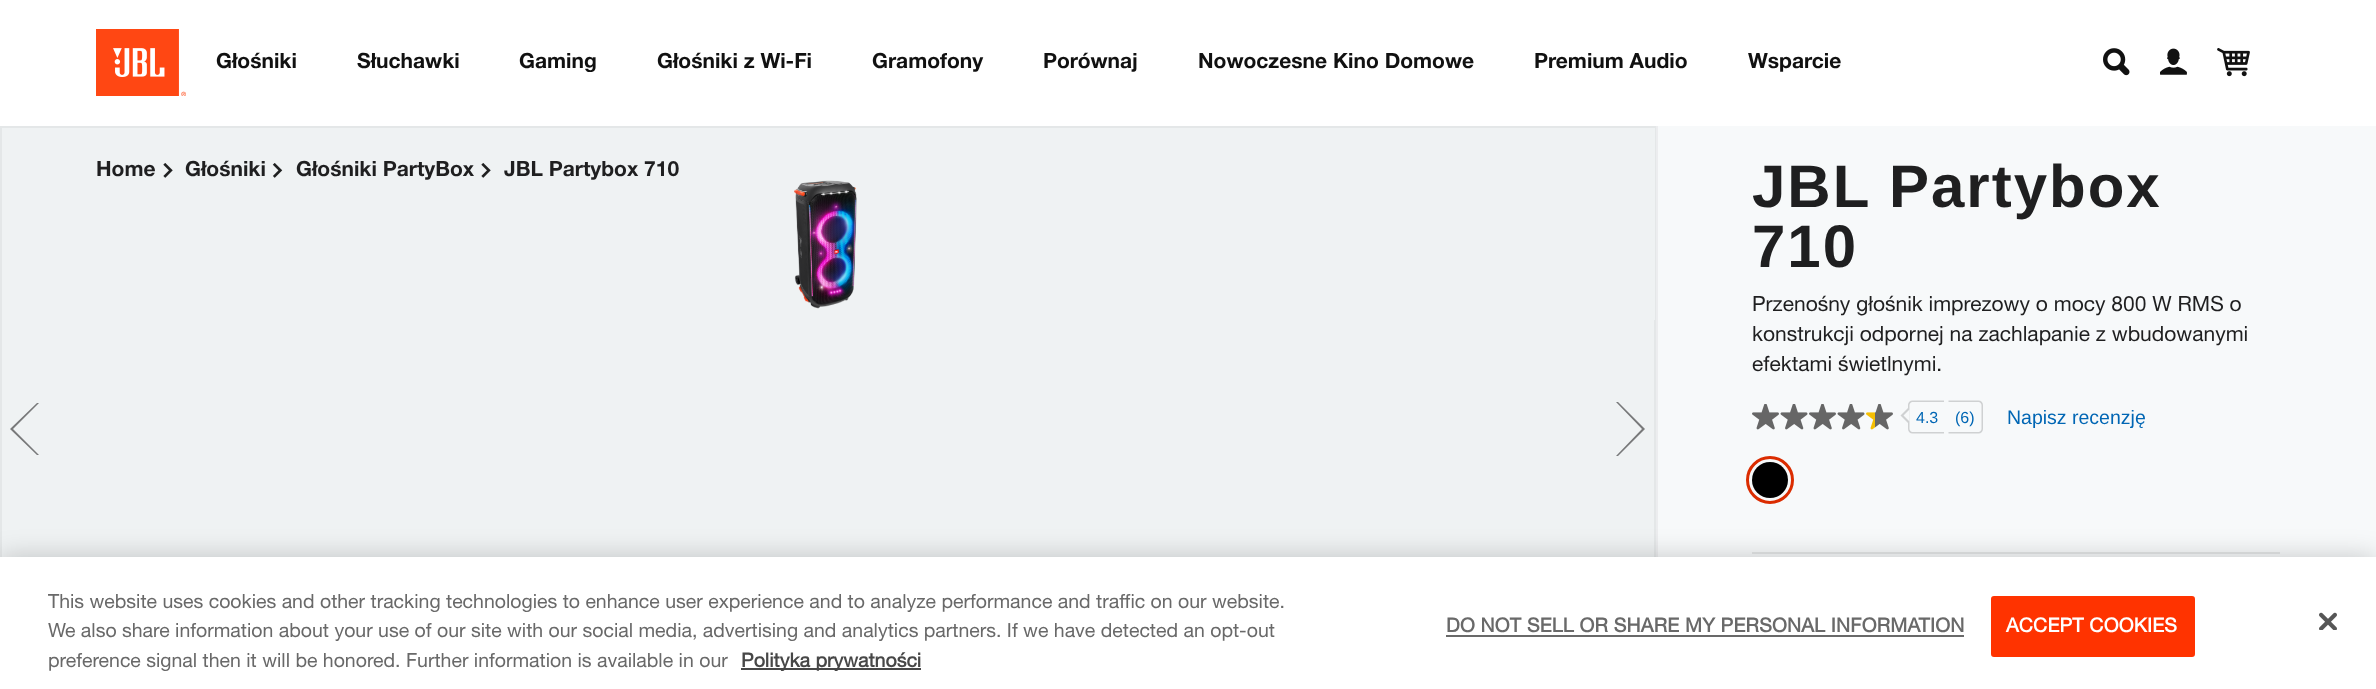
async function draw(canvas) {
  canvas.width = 2376;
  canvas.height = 689;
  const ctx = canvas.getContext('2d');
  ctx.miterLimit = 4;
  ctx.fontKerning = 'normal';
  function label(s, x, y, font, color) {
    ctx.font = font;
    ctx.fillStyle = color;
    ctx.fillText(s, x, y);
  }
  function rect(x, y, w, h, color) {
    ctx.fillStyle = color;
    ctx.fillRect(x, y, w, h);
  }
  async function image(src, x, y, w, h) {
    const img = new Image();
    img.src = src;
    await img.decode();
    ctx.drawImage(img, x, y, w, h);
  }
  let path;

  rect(0, 0, 2376, 689, '#fff');
  await image('assets/img1.png', 96, 29, 90, 67);
  label('Głośniki', 216, 68, 'bold 21px "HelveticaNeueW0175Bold"', '#111');
  label('Słuchawki', 357, 68, 'bold 21px "HelveticaNeueW0175Bold"', '#111');
  label('Gaming', 519, 68, 'bold 21px "HelveticaNeueW0175Bold"', '#111');
  label('Głośniki z Wi-Fi', 657, 68, 'bold 21px "HelveticaNeueW0175Bold"', '#111');
  label('Gramofony', 872, 68, 'bold 21px "HelveticaNeueW0175Bold"', '#111');
  label('Porównaj', 1043, 68, 'bold 21px "HelveticaNeueW0175Bold"', '#111');
  label('Nowoczesne Kino Domowe', 1198, 68, 'bold 21px "HelveticaNeueW0175Bold"', '#111');
  label('Premium Audio', 1534, 68, 'bold 21px "HelveticaNeueW0175Bold"', '#111');
  label('Wsparcie', 1748, 68, 'bold 21px "HelveticaNeueW0175Bold"', '#111');
  await image('assets/img2.png', 2103, 48, 27, 28);
  await image('assets/img3.png', 2160, 48, 27, 27);
  await image('assets/img4.png', 2217, 48, 33, 29);
  rect(1658, 126, 718, 431, '#f7f9fa');
  rect(2, 320, 1652, 237, '#eff2f3');
  ctx.strokeStyle = '#e4e7e8';
  ctx.lineWidth = 2;
  ctx.strokeRect(1, 127, 1654, 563);
  rect(2, 128, 1653, 192, '#eff2f3');
  await image('assets/img5.png', 794, 180, 63, 129);
  ctx.fillStyle = '#78797a';
  path = new Path2D('M39 403L13 429L39 455H37L10 429L37 403Z');
  ctx.fill(path, 'evenodd');
  path = new Path2D('M1616 456L1642 429L1616 402H1618L1645 429L1618 456Z');
  ctx.fill(path, 'evenodd');
  label('Home', 96, 176, 'bold 21px "HelveticaNeueW0175Bold"', '#1f1f20');
  await image('assets/img6.png', 163, 163, 10, 15);
  label('Głośniki', 185, 176, 'bold 21px "HelveticaNeueW0175Bold"', '#1f1f20');
  await image('assets/img7.png', 272, 163, 11, 15);
  label('Głośniki PartyBox', 296, 176, 'bold 21px "HelveticaNeueW0175Bold"', '#1f1f20');
  await image('assets/img6.png', 481, 163, 10, 15);
  label('JBL Partybox 710', 504, 176, 'bold 21px "HelveticaNeueW0175Bold"', '#1f1f20');
  rect(1656, 126, 2, 431, '#ecedef');
  ctx.letterSpacing = '2px';
  label('JBL Partybox', 1752, 207, 'bold 60px Liberation Sans', '#1f1f20');
  label('710', 1752, 267, 'bold 60px Liberation Sans', '#1f1f20');
  ctx.letterSpacing = '0px';
  label('Przenośny głośnik imprezowy o mocy 800 W RMS o', 1752, 311, '21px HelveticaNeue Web', '#1f1f20');
  label('konstrukcji odpornej na zachlapanie z wbudowanymi', 1752, 341, '21px HelveticaNeue Web', '#1f1f20');
  label('efektami świetlnymi.', 1752, 371, '21px HelveticaNeue Web', '#1f1f20');
  await image('assets/img8.png', 1752, 404, 27, 26);
  await image('assets/img9.png', 1780, 404, 28, 26);
  await image('assets/img8.png', 1809, 404, 27, 26);
  await image('assets/img9.png', 1837, 404, 28, 26);
  await image('assets/img10.png', 1866, 404, 27, 26);
  ctx.fillStyle = '#cfd1d2';
  path = new Path2D('M1912.5 400.5H1944V433.5H1912.5C1910 433.5 1908 431.5 1908 429V405C1908 402.5 1910 400.5 1912.5 400.5ZM1912.5 402H1944V432H1912.5C1911 432 1909.5 430.5 1909.5 429V405C1909.5 403.5 1911 402 1912.5 402Z');
  ctx.fill(path, 'evenodd');
  path = new Path2D('M1908 408V423L1900.5 415.5Z');
  ctx.fill(path);
  ctx.fillStyle = '#f7f9fa';
  path = new Path2D('M1909.5 409.5V421.5L1903.5 415.5Z');
  ctx.fill(path);
  label('4.3', 1916, 423, '16px Liberation Sans', '#0066b4');
  ctx.fillStyle = '#cfd1d2';
  path = new Path2D('M1948.5 400.5H1978.5C1981 400.5 1983 402.5 1983 405V429C1983 431.5 1981 433.5 1978.5 433.5H1948.5ZM1948.5 402H1978.5C1980 402 1981.5 403.5 1981.5 405V429C1981.5 430.5 1980 432 1978.5 432H1948.5Z');
  ctx.fill(path, 'evenodd');
  label('(6)', 1955, 423, '16px Liberation Sans', '#0066b4');
  label('Napisz recenzję', 2007, 424, '19.5px Liberation Sans', '#0066b4');
  rect(1752, 552, 528, 2, '#e3e5e6');
  ctx.beginPath();
  ctx.arc(1770, 480, 22.5, 0, 2 * Math.PI);
  ctx.strokeStyle = '#db2c00';
  ctx.lineWidth = 3;
  ctx.stroke();
  await image('assets/img11.png', 1752, 462, 36, 36);
  ctx.fillStyle = '#00000033';
  ctx.filter = 'blur(13.5px)';
  ctx.beginPath();
  ctx.rect(0, 557, 2376, 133);
  ctx.fill();
  ctx.filter = 'none';
  rect(0, 557, 2376, 132, '#fff');
  label('This website uses cookies and other tracking technologies to enhance user experience and to analyze performance and traffic on our website.', 48, 608, '19.5px HelveticaNeue Web', '#696969');
  label('We also share information about your use of our site with our social media, advertising and analytics partners. If we have detected an opt-out', 48, 637, '19.5px HelveticaNeue Web', '#696969');
  label('preference signal then it will be honored. Further information is available in our', 48, 667, '19.5px HelveticaNeue Web', '#696969');
  rect(741, 668, 180, 2, '#474747');
  label('Polityka prywatności', 741, 667, 'bold 19.5px "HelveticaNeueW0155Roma"', '#474747');
  ctx.letterSpacing = '0.2px';
  label('DO NOT SELL OR SHARE MY PERSONAL INFORMATION', 1446, 632, 'bold 19.5px "HelveticaNeueW0155Roma"', '#696969');
  rect(1446, 635, 518, 2, '#696969');
  ctx.fillStyle = '#f30';
  ctx.beginPath();
  ctx.roundRect(1992, 597, 202, 59, 2);
  ctx.fill();
  ctx.strokeStyle = '#f30';
  ctx.lineWidth = 2;
  ctx.stroke();
  label('ACCEPT COOKIES', 2006, 632, 'bold 19.5px "HelveticaNeueW0155Roma"', '#fff');
  await image('assets/img12.png', 2319, 612, 18, 18);
}

draw(document.querySelector('canvas'));
